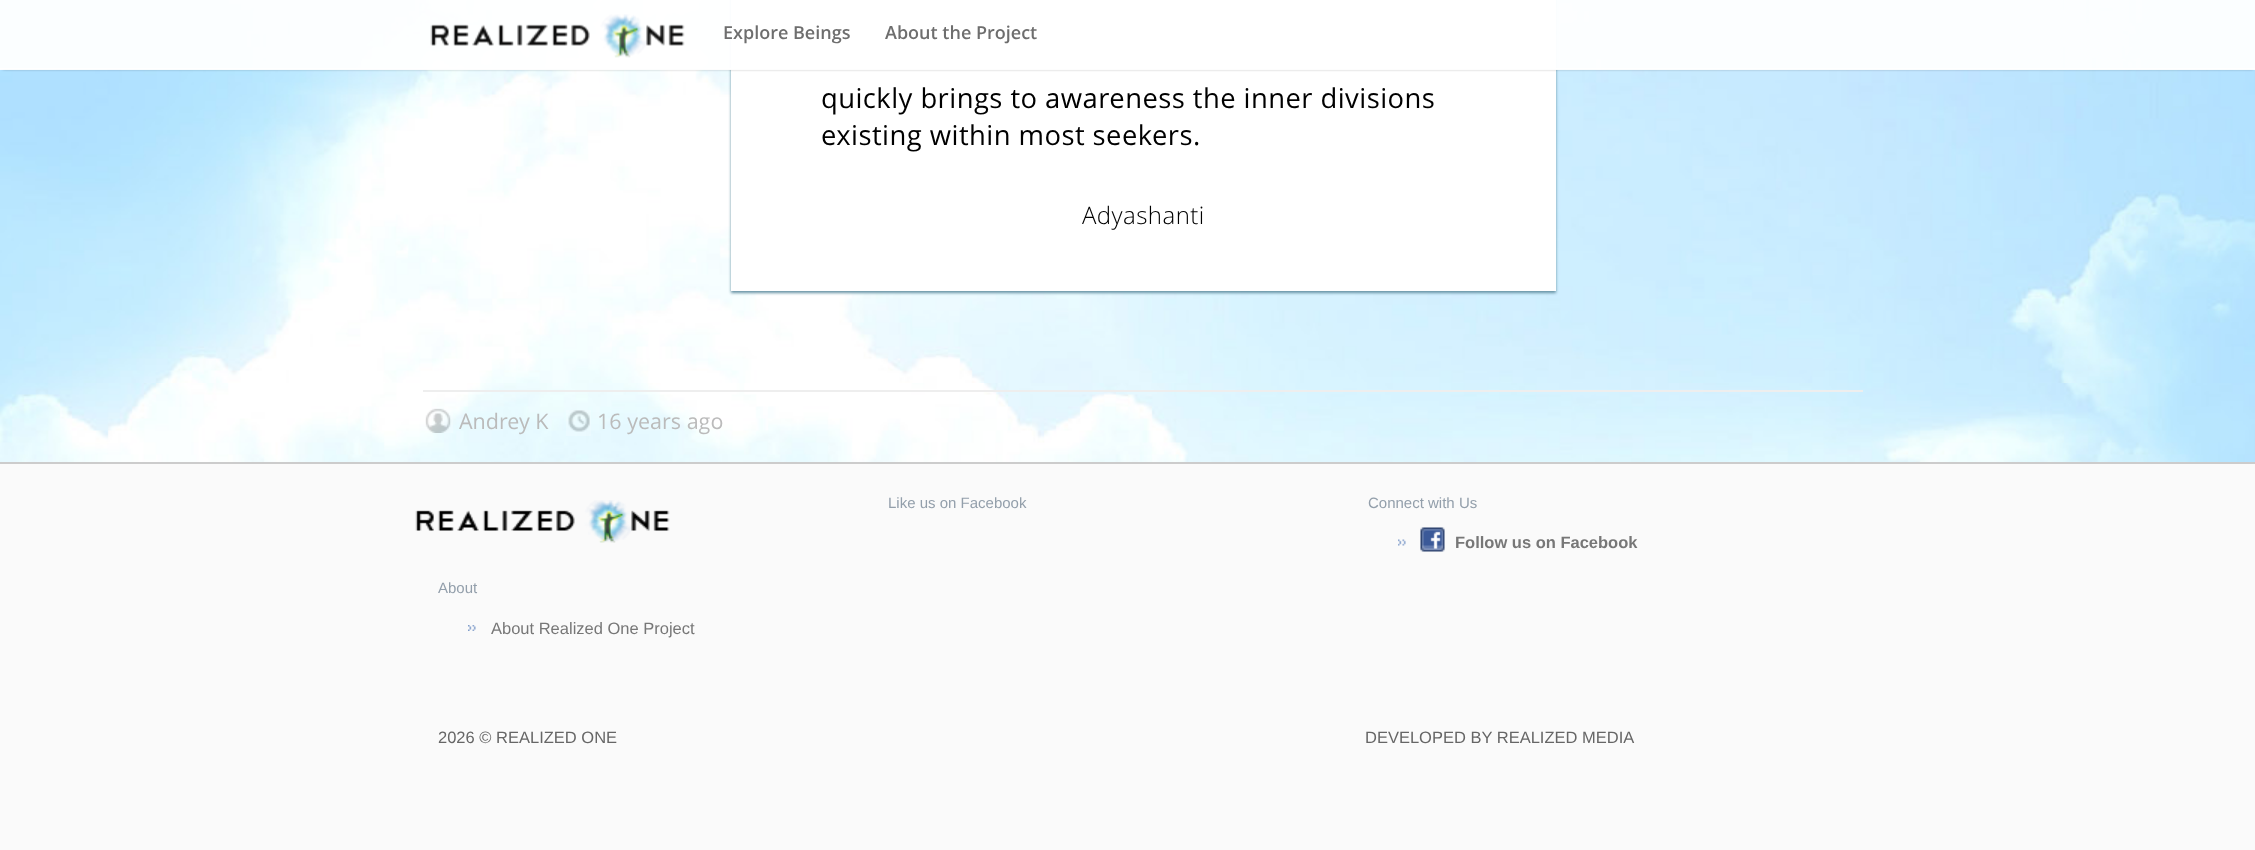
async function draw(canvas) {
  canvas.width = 2255;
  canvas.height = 850;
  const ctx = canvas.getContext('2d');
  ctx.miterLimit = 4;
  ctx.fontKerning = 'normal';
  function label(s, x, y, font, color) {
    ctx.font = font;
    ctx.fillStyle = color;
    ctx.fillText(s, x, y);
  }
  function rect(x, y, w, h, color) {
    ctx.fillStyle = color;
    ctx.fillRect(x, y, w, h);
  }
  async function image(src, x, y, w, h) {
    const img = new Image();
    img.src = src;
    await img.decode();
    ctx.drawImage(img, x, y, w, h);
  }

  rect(0, 0, 2255, 850, '#fff');
  await image('assets/img1.png', 0, 0, 2255, 462);
  ctx.fillStyle = '#6591a3';
  ctx.filter = 'blur(1.5px)';
  ctx.beginPath();
  ctx.rect(731, -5, 825, 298);
  ctx.fill();
  ctx.filter = 'none';
  rect(731, 0, 825, 291, '#fff');
  ctx.save();
  ctx.beginPath();
  ctx.rect(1, 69, 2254, 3);
  ctx.clip();
  ctx.fillStyle = '#0000007d';
  ctx.filter = 'blur(1.5px)';
  ctx.beginPath();
  ctx.rect(3, 6, 2250, 63);
  ctx.fill();
  ctx.filter = 'none';
  ctx.restore();
  rect(0, 0, 2255, 69, '#fffffff2');
  rect(0, 68, 2255, 2, '#fffffff2');
  await image('assets/img2.png', 430, 14, 255, 44);
  label('Explore Beings', 723, 39, '600 18px Open Sans', '#6e6e6e');
  label('About the Project', 885, 39, '600 18px Open Sans', '#6e6e6e');
  ctx.letterSpacing = '0.45px';
  label('quickly brings to awareness the inner divisions', 821, 108, '27.4px Open Sans', '#000');
  label('existing within most seekers.', 821, 145, '27.4px Open Sans', '#000');
  label('Adyashanti', 1082, 224, '300 24px Open Sans', '#000');
  rect(423, 390, 1440, 2, '#eee');
  await image('assets/img3.png', 425, 408, 28, 25);
  ctx.letterSpacing = '0px';
  label('Andrey K', 459, 429, '21.5px Open Sans', '#bbb');
  await image('assets/img4.png', 566, 410, 25, 26);
  label('16 years ago', 597, 429, '21.5px Open Sans', '#bbb');
  rect(0, 464, 2255, 386, '#fafafa');
  rect(0, 462, 2255, 2, '#ccc');
  label('Like us on Facebook', 888, 508, '15px Liberation Sans', '#939fab');
  label('Connect with Us', 1368, 508, '15px Liberation Sans', '#939fab');
  await image('assets/img5.png', 1398, 539, 8, 7);
  await image('assets/img6.png', 1420, 527, 25, 25);
  label('Follow us on Facebook', 1455, 548, 'bold 16.5px Liberation Sans', '#777');
  await image('assets/img7.png', 415, 500, 255, 43);
  label('About', 438, 593, '15px Liberation Sans', '#939fab');
  await image('assets/img8.png', 468, 625, 8, 6);
  label('About Realized One Project', 491, 634, '16.5px Liberation Sans', '#777');
  label('2026 © REALIZED ONE', 438, 743, '16.5px Liberation Sans', '#666');
  label('DEVELOPED BY REALIZED MEDIA', 1365, 743, '16.5px Liberation Sans', '#666');
}

draw(document.querySelector('canvas'));
